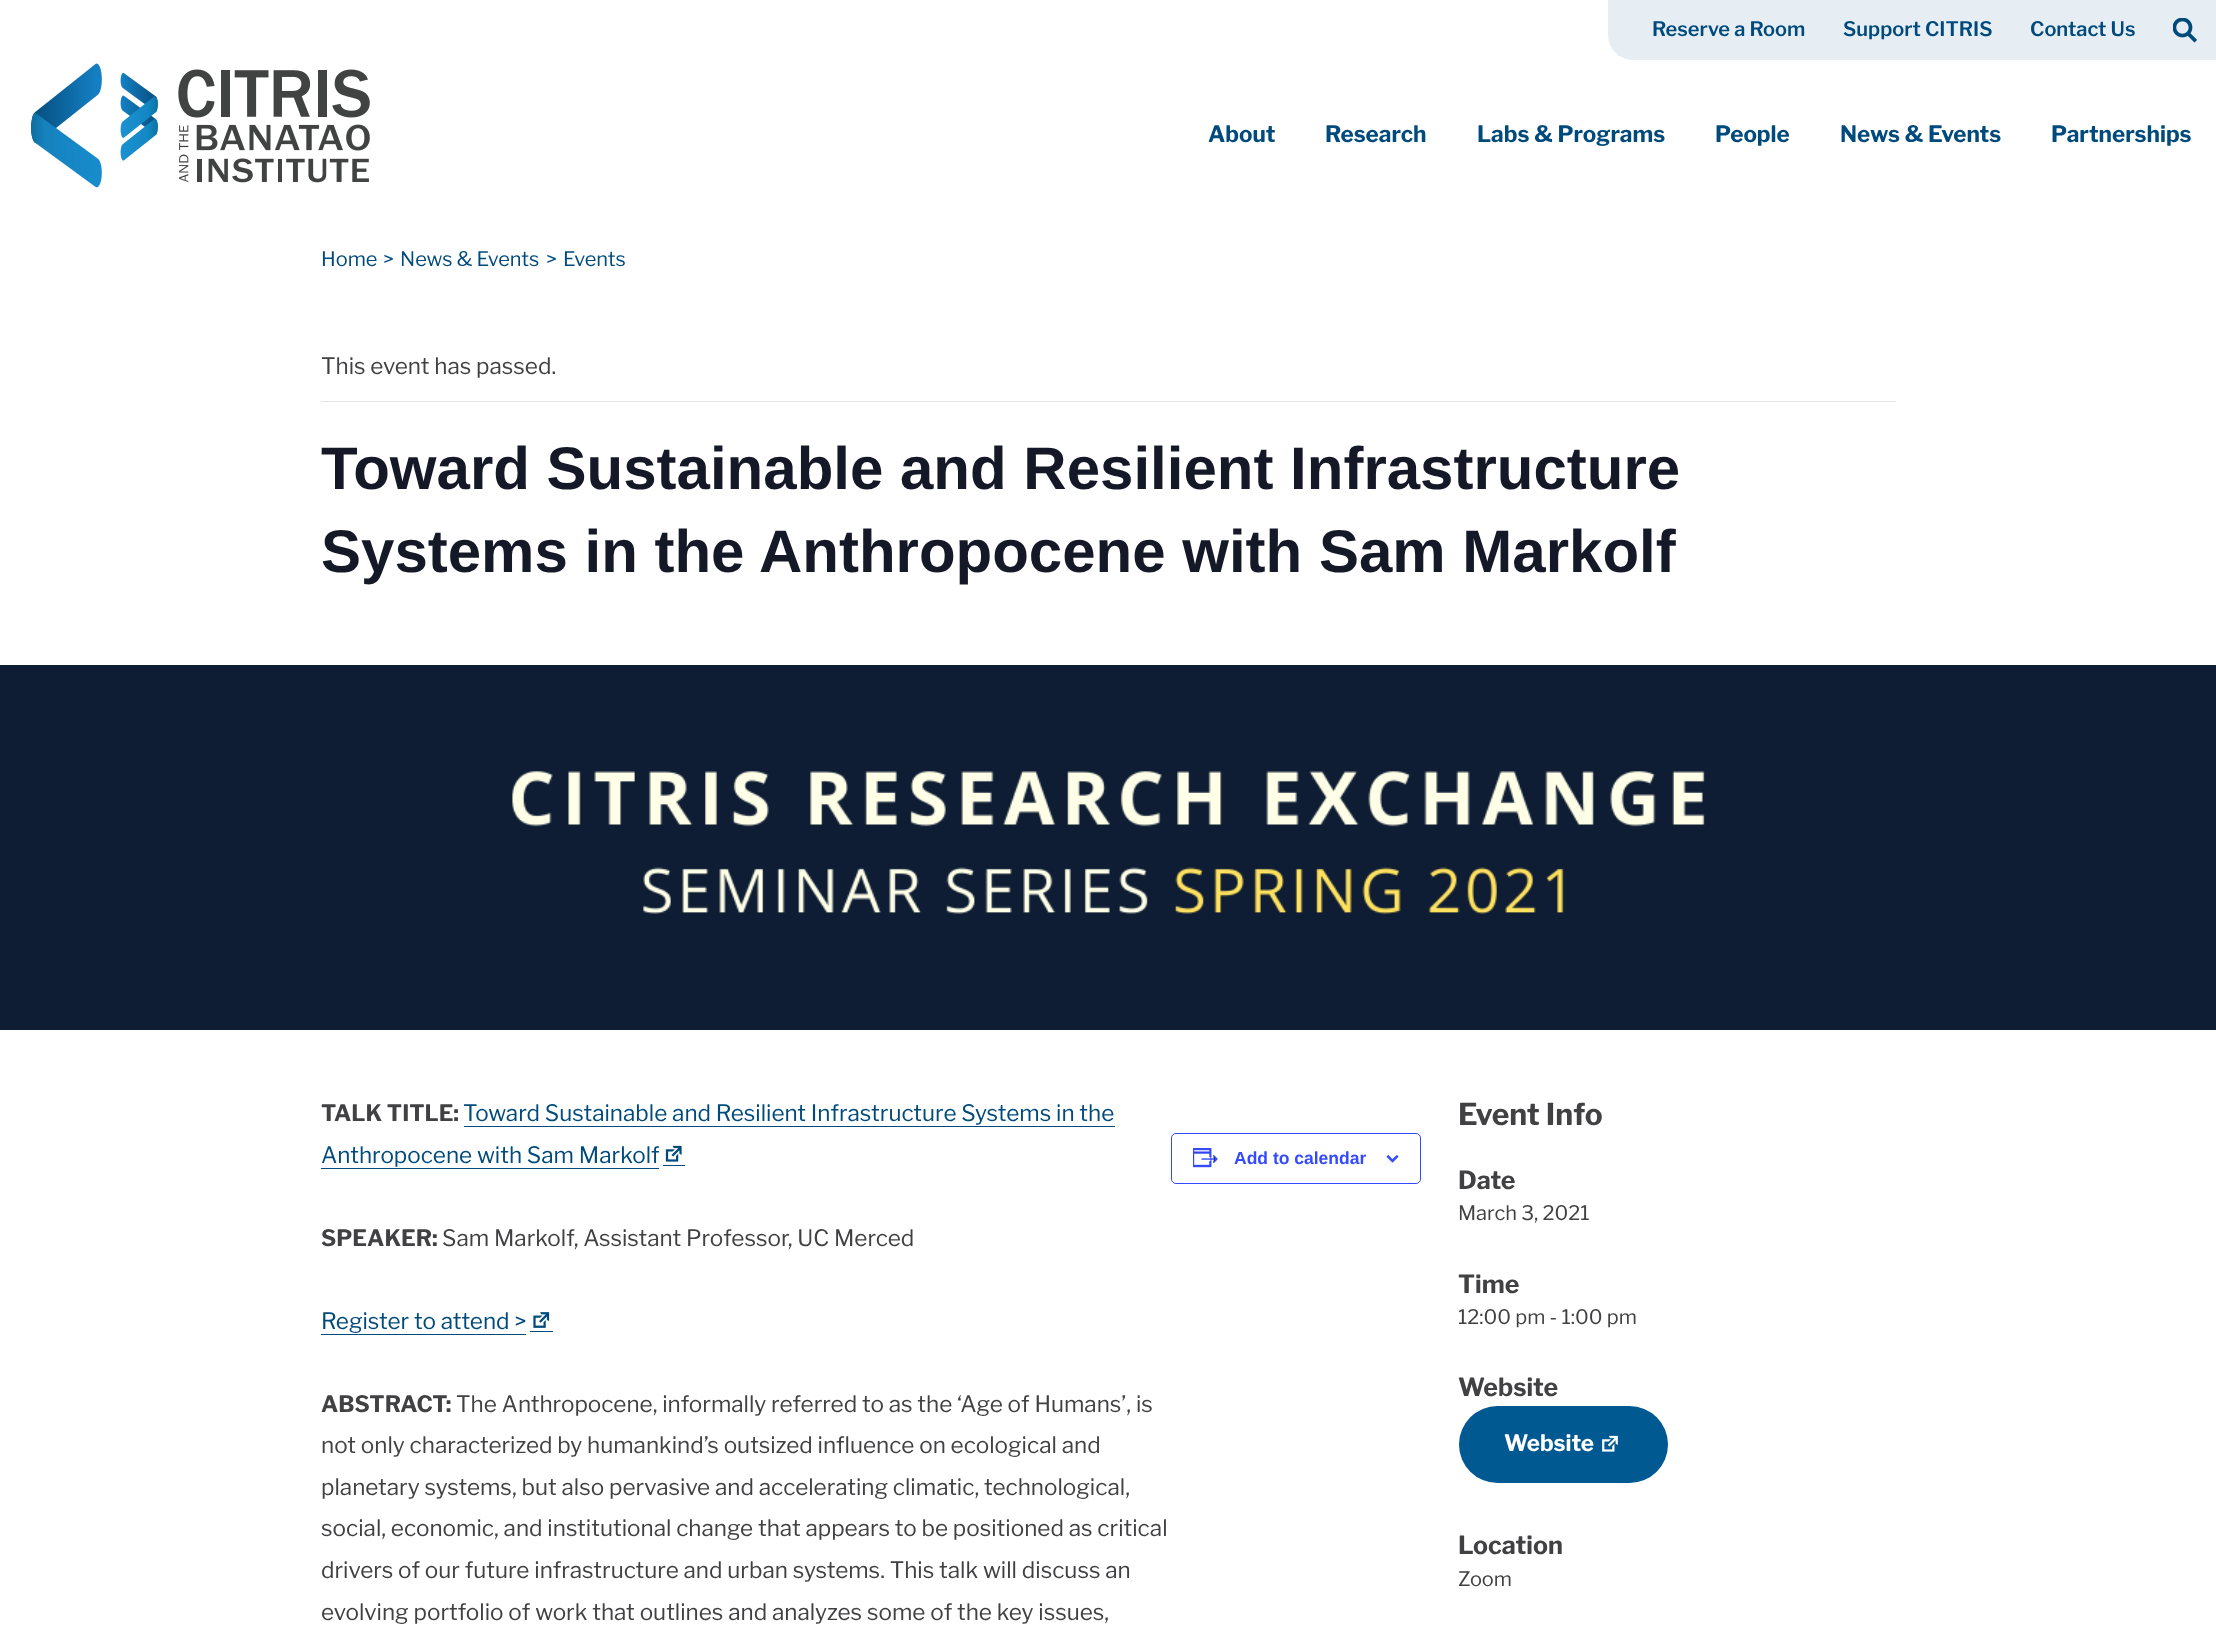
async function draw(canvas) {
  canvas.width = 2216;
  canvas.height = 1644;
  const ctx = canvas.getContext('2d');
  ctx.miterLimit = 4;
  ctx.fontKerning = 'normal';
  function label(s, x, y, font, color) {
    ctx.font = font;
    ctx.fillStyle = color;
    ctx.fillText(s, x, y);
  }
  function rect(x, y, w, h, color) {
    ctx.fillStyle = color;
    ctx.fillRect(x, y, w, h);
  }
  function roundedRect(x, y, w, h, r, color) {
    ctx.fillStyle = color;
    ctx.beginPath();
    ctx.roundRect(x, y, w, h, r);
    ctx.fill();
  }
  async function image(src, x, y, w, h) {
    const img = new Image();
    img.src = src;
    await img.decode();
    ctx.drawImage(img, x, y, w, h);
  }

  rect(0, 0, 2216, 1644, '#fff');
  await image('assets/img1.png', 31, 63, 339, 125);
  ctx.fillStyle = '#e6eef4';
  ctx.beginPath();
  ctx.roundRect(1608, 0, 608, 60, [0, 0, 0, 25]);
  ctx.fill();
  label('Reserve a Room', 1652, 36, '600 20px Libre Franklin', '#004a7c');
  label('Support CITRIS', 1843, 36, '600 20px Libre Franklin', '#004a7c');
  label('Contact Us', 2030, 36, '600 20px Libre Franklin', '#004a7c');
  await image('assets/img2.png', 2173, 18, 24, 25);
  label('About', 1208, 142, 'bold 22.5px Libre Franklin', '#004a7c');
  label('Research', 1325, 142, 'bold 22.5px Libre Franklin', '#004a7c');
  label('Labs & Programs', 1477, 142, 'bold 22.5px Libre Franklin', '#004a7c');
  label('People', 1715, 142, 'bold 22.5px Libre Franklin', '#004a7c');
  label('News & Events', 1840, 142, 'bold 22.5px Libre Franklin', '#004a7c');
  label('Partnerships', 2051, 142, 'bold 22.5px Libre Franklin', '#004a7c');
  label('Home', 321, 266, '20px Libre Franklin', '#004a7c');
  label('>', 383, 266, '20px Libre Franklin', '#004a7c');
  label('News & Events', 400, 266, '20px Libre Franklin', '#004a7c');
  label('>', 546, 266, '20px Libre Franklin', '#004a7c');
  label('Events', 563, 266, '20px Libre Franklin', '#004a7c');
  rect(321, 401, 1575, 1, '#e4e4e4');
  label('This event has passed.', 321, 374, '22.5px Libre Franklin', '#414042');
  label('Toward Sustainable and Resilient Infrastructure', 321, 489, 'bold 60px Liberation Sans', '#141827');
  label('Systems in the Anthropocene with Sam Markolf', 321, 572, 'bold 60px Liberation Sans', '#141827');
  await image('assets/img3.png', 0, 665, 2216, 365);
  label('TALK TITLE:', 321, 1121, 'bold 22.5px Libre Franklin', '#414042');
  label('Toward Sustainable and Resilient Infrastructure Systems in the', 463, 1121, '22.5px Libre Franklin', '#004a7c');
  rect(464, 1126, 651, 1, '#004a7c');
  label('Anthropocene with Sam Markolf', 321, 1163, '22.5px Libre Franklin', '#004a7c');
  rect(321, 1168, 338, 1, '#004a7c');
  rect(663, 1165, 22, 1, '#004a7c');
  await image('assets/img4.png', 665, 1145, 17, 17);
  label('SPEAKER:', 321, 1246, 'bold 22.5px Libre Franklin', '#414042');
  label('Sam Markolf, Assistant Professor, UC Merced', 442, 1246, '22.5px Libre Franklin', '#414042');
  label('Register to attend >', 321, 1329, '22.5px Libre Franklin', '#004a7c');
  rect(321, 1334, 205, 1, '#004a7c');
  rect(530, 1331, 23, 1, '#004a7c');
  await image('assets/img5.png', 533, 1312, 17, 16);
  label('ABSTRACT:', 321, 1412, 'bold 22.5px Libre Franklin', '#414042');
  label('The Anthropocene, informally referred to as the ‘Age of Humans’, is', 456, 1412, '22.5px Libre Franklin', '#414042');
  label('not only characterized by humankind’s outsized influence on ecological and', 321, 1453, '22.5px Libre Franklin', '#414042');
  label('planetary systems, but also pervasive and accelerating climatic, technological,', 321, 1495, '22.5px Libre Franklin', '#414042');
  label('social, economic, and institutional change that appears to be positioned as critical', 321, 1536, '22.5px Libre Franklin', '#414042');
  label('drivers of our future infrastructure and urban systems. This talk will discuss an', 321, 1578, '22.5px Libre Franklin', '#414042');
  label('evolving portfolio of work that outlines and analyzes some of the key issues,', 321, 1620, '22.5px Libre Franklin', '#414042');
  ctx.beginPath();
  ctx.roundRect(1171.5, 1133.5, 249, 50, 4.5);
  ctx.strokeStyle = '#334aff';
  ctx.stroke();
  await image('assets/img6.png', 1193, 1148, 25, 20);
  label('Add to calendar', 1234, 1164, 'bold 17.5px Liberation Sans', '#334aff');
  await image('assets/img7.png', 1386, 1155, 13, 8);
  label('Event Info', 1458, 1125, 'bold 30px Libre Franklin', '#414042');
  label('Date', 1458, 1189, 'bold 25px Libre Franklin', '#414042');
  label('March 3, 2021', 1458, 1220, '20px Libre Franklin', '#414042');
  label('Time', 1458, 1293, 'bold 25px Libre Franklin', '#414042');
  label('12:00 pm - 1:00 pm', 1458, 1324, '20px Libre Franklin', '#414042');
  label('Website', 1458, 1396, 'bold 25px Libre Franklin', '#414042');
  roundedRect(1459, 1406, 209, 77, 38.5, '#005990');
  label('Website', 1504, 1451, 'bold 22.5px Libre Franklin', '#fff');
  await image('assets/img8.png', 1602, 1435, 16, 17);
  label('Location', 1458, 1554, 'bold 25px Libre Franklin', '#414042');
  label('Zoom', 1458, 1586, '20px Libre Franklin', '#414042');
}

draw(document.querySelector('canvas'));
